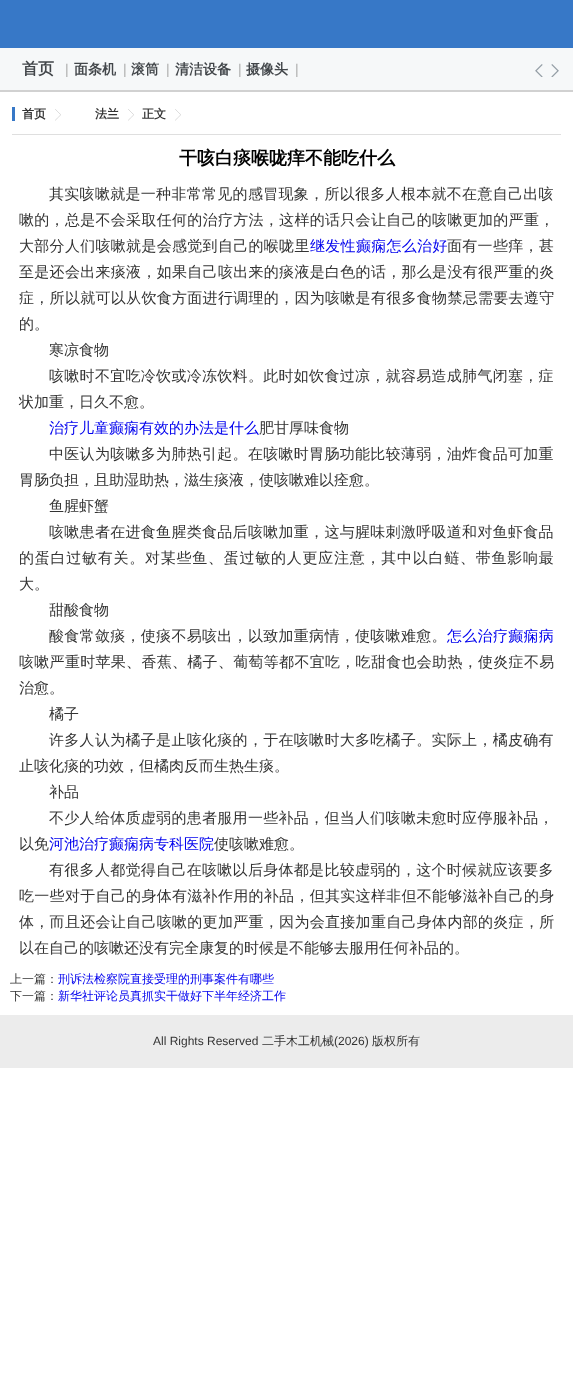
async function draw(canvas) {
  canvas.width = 573;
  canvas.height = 1398;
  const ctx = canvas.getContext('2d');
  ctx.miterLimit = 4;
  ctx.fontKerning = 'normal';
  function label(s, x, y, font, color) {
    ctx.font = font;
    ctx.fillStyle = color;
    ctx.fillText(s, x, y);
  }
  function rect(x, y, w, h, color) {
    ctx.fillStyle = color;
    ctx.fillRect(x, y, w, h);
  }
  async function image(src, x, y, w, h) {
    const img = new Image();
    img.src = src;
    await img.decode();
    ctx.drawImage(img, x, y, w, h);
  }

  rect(0, 0, 573, 1398, '#fff');
  rect(0, 0, 573, 48, '#3778c7');
  rect(0, 48, 573, 42, '#f6f8f9');
  rect(0, 90, 573, 2, '#d1d1d1');
  label('首页', 22, 74, 'bold 16px WenQuanYi Zen Hei', '#42464a');
  label('|', 65, 74, '14px Liberation Sans', '#aeaeae');
  label('面条机', 74, 74, 'bold 14px WenQuanYi Zen Hei', '#42464a');
  label('|', 123, 74, '14px Liberation Sans', '#aeaeae');
  label('滚筒', 131, 74, 'bold 14px WenQuanYi Zen Hei', '#42464a');
  label('|', 166, 74, '14px Liberation Sans', '#aeaeae');
  label('清洁设备', 175, 74, 'bold 14px WenQuanYi Zen Hei', '#42464a');
  label('|', 238, 74, '14px Liberation Sans', '#aeaeae');
  label('摄像头', 246, 74, 'bold 14px WenQuanYi Zen Hei', '#42464a');
  label('|', 295, 74, '14px Liberation Sans', '#aeaeae');
  await image('assets/img1.png', 535, 64, 8, 13);
  await image('assets/img2.png', 551, 64, 8, 13);
  rect(12, 134, 549, 1, '#dfdfdf');
  await image('assets/img3.png', 55, 109, 6, 12);
  rect(12, 107, 3, 14, '#3778c7');
  label('首页', 22, 118, 'bold 12px WenQuanYi Zen Hei', '#333');
  await image('assets/img3.png', 128, 109, 6, 12);
  label('法兰', 95, 118, 'bold 12px WenQuanYi Zen Hei', '#333');
  await image('assets/img3.png', 175, 109, 6, 12);
  label('正文', 142, 118, 'bold 12px WenQuanYi Zen Hei', '#333');
  label('干咳白痰喉咙痒不能吃什么', 179, 164, 'bold 18px WenQuanYi Zen Hei', '#000');
  ctx.letterSpacing = '0.3px';
  label('其实咳嗽就是一种非常常见的感冒现象，所以很多人根本就不在意自己出咳', 49, 199, '500 15px WenQuanYi Zen Hei', '#333');
  label('嗽的，总是不会采取任何的治疗方法，这样的话只会让自己的咳嗽更加的严重，', 19, 225, '500 15px WenQuanYi Zen Hei', '#333');
  label('大部分人们咳嗽就是会感觉到自己的喉咙里', 19, 251, '500 15px WenQuanYi Zen Hei', '#333');
  label('继发性癫痫怎么治好', 310, 251, '500 15px WenQuanYi Zen Hei', '#00e');
  label('面有一些痒，甚', 447, 251, '500 15px WenQuanYi Zen Hei', '#333');
  label('至是还会出来痰液，如果自己咳出来的痰液是白色的话，那么是没有很严重的炎', 19, 277, '500 15px WenQuanYi Zen Hei', '#333');
  label('症，所以就可以从饮食方面进行调理的，因为咳嗽是有很多食物禁忌需要去遵守', 19, 303, '500 15px WenQuanYi Zen Hei', '#333');
  ctx.letterSpacing = '0px';
  label('的。', 19, 329, '500 15px WenQuanYi Zen Hei', '#333');
  label('寒凉食物', 49, 355, '500 15px WenQuanYi Zen Hei', '#333');
  ctx.letterSpacing = '0.3px';
  label('咳嗽时不宜吃冷饮或冷冻饮料。此时如饮食过凉，就容易造成肺气闭塞，症', 49, 381, '500 15px WenQuanYi Zen Hei', '#333');
  ctx.letterSpacing = '0px';
  label('状加重，日久不愈。', 19, 407, '500 15px WenQuanYi Zen Hei', '#333');
  label('治疗儿童癫痫有效的办法是什么', 49, 433, '500 15px WenQuanYi Zen Hei', '#00e');
  label('肥甘厚味食物', 259, 433, '500 15px WenQuanYi Zen Hei', '#333');
  ctx.letterSpacing = '0.3px';
  label('中医认为咳嗽多为肺热引起。在咳嗽时胃肠功能比较薄弱，油炸食品可加重', 49, 459, '500 15px WenQuanYi Zen Hei', '#333');
  ctx.letterSpacing = '0px';
  label('胃肠负担，且助湿助热，滋生痰液，使咳嗽难以痊愈。', 19, 485, '500 15px WenQuanYi Zen Hei', '#333');
  label('鱼腥虾蟹', 49, 511, '500 15px WenQuanYi Zen Hei', '#333');
  ctx.letterSpacing = '0.3px';
  label('咳嗽患者在进食鱼腥类食品后咳嗽加重，这与腥味刺激呼吸道和对鱼虾食品', 49, 537, '500 15px WenQuanYi Zen Hei', '#333');
  ctx.letterSpacing = '0.75px';
  label('的蛋白过敏有关。对某些鱼、蛋过敏的人更应注意，其中以白鲢、带鱼影响最', 19, 563, '500 15px WenQuanYi Zen Hei', '#333');
  ctx.letterSpacing = '0px';
  label('大。', 19, 589, '500 15px WenQuanYi Zen Hei', '#333');
  label('甜酸食物', 49, 615, '500 15px WenQuanYi Zen Hei', '#333');
  ctx.letterSpacing = '0.3px';
  label('酸食常敛痰，使痰不易咳出，以致加重病情，使咳嗽难愈。', 49, 641, '500 15px WenQuanYi Zen Hei', '#333');
  label('怎么治疗癫痫病', 447, 641, '500 15px WenQuanYi Zen Hei', '#00e');
  label('咳嗽严重时苹果、香蕉、橘子、葡萄等都不宜吃，吃甜食也会助热，使炎症不易', 19, 667, '500 15px WenQuanYi Zen Hei', '#333');
  ctx.letterSpacing = '0px';
  label('治愈。', 19, 693, '500 15px WenQuanYi Zen Hei', '#333');
  label('橘子', 49, 719, '500 15px WenQuanYi Zen Hei', '#333');
  ctx.letterSpacing = '0.3px';
  label('许多人认为橘子是止咳化痰的，于在咳嗽时大多吃橘子。实际上，橘皮确有', 49, 745, '500 15px WenQuanYi Zen Hei', '#333');
  ctx.letterSpacing = '0px';
  label('止咳化痰的功效，但橘肉反而生热生痰。', 19, 771, '500 15px WenQuanYi Zen Hei', '#333');
  label('补品', 49, 797, '500 15px WenQuanYi Zen Hei', '#333');
  ctx.letterSpacing = '0.3px';
  label('不少人给体质虚弱的患者服用一些补品，但当人们咳嗽未愈时应停服补品，', 49, 823, '500 15px WenQuanYi Zen Hei', '#333');
  ctx.letterSpacing = '0px';
  label('以免', 19, 849, '500 15px WenQuanYi Zen Hei', '#333');
  label('河池治疗癫痫病专科医院', 49, 849, '500 15px WenQuanYi Zen Hei', '#00e');
  label('使咳嗽难愈。', 214, 849, '500 15px WenQuanYi Zen Hei', '#333');
  ctx.letterSpacing = '0.3px';
  label('有很多人都觉得自己在咳嗽以后身体都是比较虚弱的，这个时候就应该要多', 49, 875, '500 15px WenQuanYi Zen Hei', '#333');
  label('吃一些对于自己的身体有滋补作用的补品，但其实这样非但不能够滋补自己的身', 19, 901, '500 15px WenQuanYi Zen Hei', '#333');
  label('体，而且还会让自己咳嗽的更加严重，因为会直接加重自己身体内部的炎症，所', 19, 927, '500 15px WenQuanYi Zen Hei', '#333');
  ctx.letterSpacing = '0px';
  label('以在自己的咳嗽还没有完全康复的时候是不能够去服用任何补品的。', 19, 953, '500 15px WenQuanYi Zen Hei', '#333');
  label('上一篇：', 10, 983, '500 12px WenQuanYi Zen Hei', '#333');
  label('刑诉法检察院直接受理的刑事案件有哪些', 58, 983, '500 12px WenQuanYi Zen Hei', '#00e');
  label('下一篇：', 10, 1000, '500 12px WenQuanYi Zen Hei', '#333');
  label('新华社评论员真抓实干做好下半年经济工作', 58, 1000, '500 12px WenQuanYi Zen Hei', '#00e');
  rect(0, 1015, 573, 53, '#ececec');
  label('All Rights Reserved', 153, 1045, '12px Liberation Sans', '#333');
  label('二手木工机械', 262, 1045, '500 12px WenQuanYi Zen Hei', '#333');
  label('(2026)', 334, 1045, '12px Liberation Sans', '#333');
  label('版权所有', 372, 1045, '500 12px WenQuanYi Zen Hei', '#333');
}

draw(document.querySelector('canvas'));
